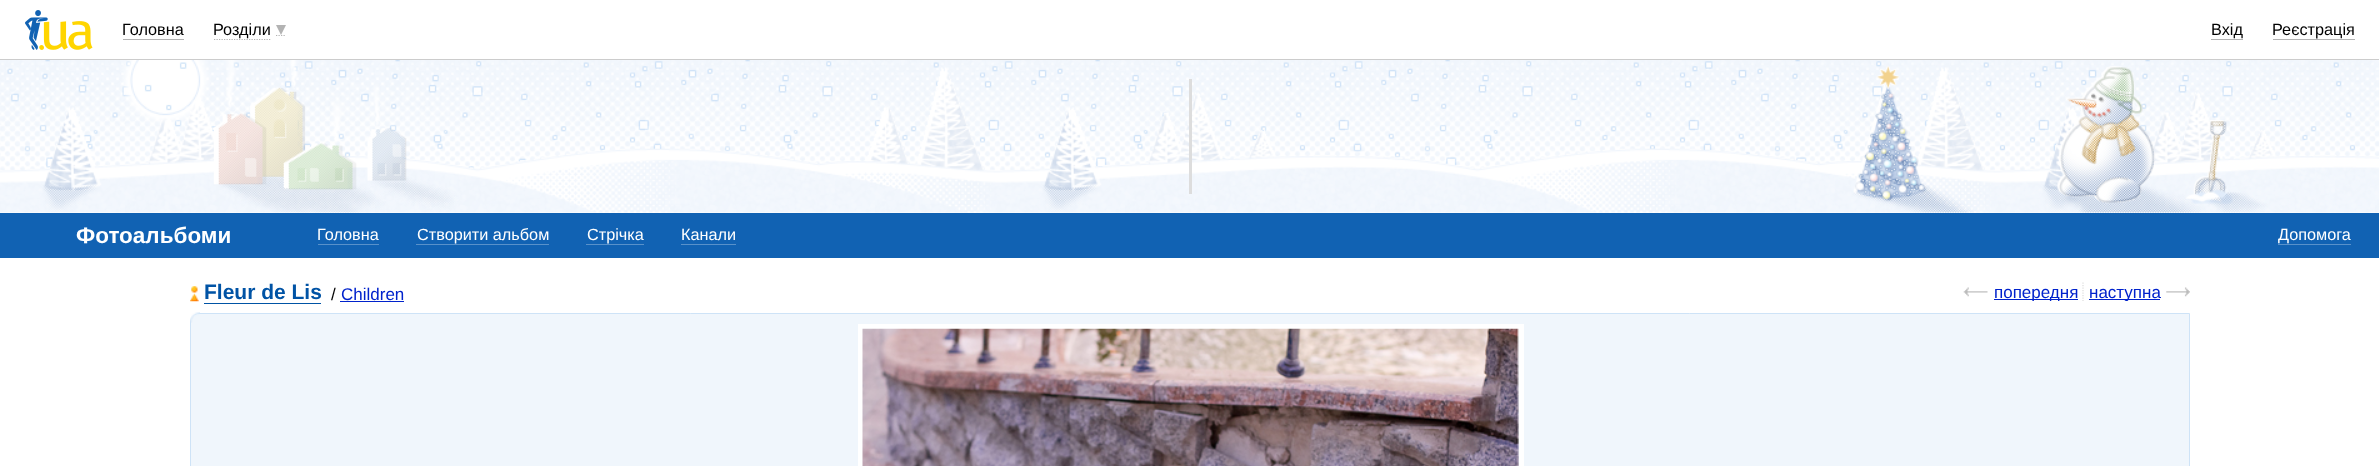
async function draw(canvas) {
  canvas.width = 2379;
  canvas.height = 466;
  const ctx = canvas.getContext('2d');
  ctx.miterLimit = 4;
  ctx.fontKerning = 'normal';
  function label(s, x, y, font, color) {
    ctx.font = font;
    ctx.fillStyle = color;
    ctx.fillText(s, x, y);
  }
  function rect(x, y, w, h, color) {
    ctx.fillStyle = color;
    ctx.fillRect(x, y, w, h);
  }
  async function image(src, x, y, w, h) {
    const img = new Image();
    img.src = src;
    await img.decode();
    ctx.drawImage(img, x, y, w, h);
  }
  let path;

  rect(0, 0, 2379, 466, '#fff');
  rect(0, 59, 2379, 1, '#ccc');
  await image('assets/img1.png', 25, 10, 68, 40);
  label('Головна', 122, 35, '16.25px Liberation Sans', '#000');
  rect(123, 39, 61, 1, '#b3b3b3');
  path = new Path2D('M214 39.5H271');
  ctx.strokeStyle = '#b3b3b3';
  ctx.lineWidth = 1.2;
  ctx.setLineDash([1.25, 1.25]);
  ctx.stroke(path);
  path = new Path2D('M276 35.5H286');
  ctx.stroke(path);
  label('Розділи', 213, 35, '16.25px Liberation Sans', '#000');
  ctx.fillStyle = '#b3b3b3';
  path = new Path2D('M276 25H286L281 35Z');
  ctx.fill(path);
  label('Вхід', 2211, 35, '16.25px Liberation Sans', '#000');
  rect(2211, 39, 32, 1, '#b3b3b3');
  label('Реєстрація', 2272, 35, '16.25px Liberation Sans', '#000');
  rect(2273, 39, 82, 1, '#b3b3b3');
  await image('assets/img2.png', 0, 60, 2379, 153);
  rect(1189, 79, 3, 115, '#ddd');
  rect(0, 213, 2379, 45, '#1162b3');
  label('Фотоальбоми', 76, 243, 'bold 22.5px Liberation Sans', '#fff');
  label('Головна', 317, 240, '16.25px Liberation Sans', '#fff');
  rect(318, 244, 61, 1, '#5891ca');
  label('Створити альбом', 417, 240, '16.25px Liberation Sans', '#fff');
  rect(416, 244, 133, 1, '#5891ca');
  label('Стрічка', 587, 240, '16.25px Liberation Sans', '#fff');
  rect(586, 244, 58, 1, '#5891ca');
  label('Канали', 681, 240, '16.25px Liberation Sans', '#fff');
  rect(681, 244, 55, 1, '#5891ca');
  label('Допомога', 2278, 240, '16.25px Liberation Sans', '#fff');
  rect(2278, 244, 73, 1, '#5891ca');
  rect(204, 303, 117, 1, '#0053a5');
  await image('assets/img3.png', 190, 286, 9, 16);
  label('Fleur de Lis', 204, 299, 'bold 21px Liberation Sans', '#0053a5');
  label('/', 331, 300, '17px Liberation Sans', '#000');
  label('Children', 341, 300, '17px Liberation Sans', '#02c');
  rect(340, 301, 64, 1, '#02c');
  path = new Path2D('M2083 282.5V301');
  ctx.strokeStyle = '#ddd';
  ctx.stroke(path);
  await image('assets/img4.png', 1963, 287, 25, 10);
  rect(1994, 299, 84, 1, '#02c');
  ctx.save();
  ctx.beginPath();
  ctx.rect(1954, 283, 236, 18);
  ctx.clip();
  label('попередня', 1994, 298, '17px Liberation Sans', '#02c');
  ctx.restore();
  rect(2089, 299, 71, 1, '#02c');
  ctx.save();
  ctx.beginPath();
  ctx.rect(1954, 283, 236, 18);
  ctx.clip();
  label('наступна', 2089, 298, '17px Liberation Sans', '#02c');
  ctx.restore();
  await image('assets/img5.png', 2166, 287, 24, 10);
  ctx.fillStyle = '#f0f6fc';
  ctx.beginPath();
  ctx.rect(190.5, 313.5, 1999, 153);
  ctx.fill();
  ctx.strokeStyle = '#cee3f7';
  ctx.lineWidth = 1;
  ctx.setLineDash([]);
  ctx.stroke();
  await image('assets/img6.png', 190, 312, 10, 11);
  ctx.strokeStyle = '#fff';
  ctx.lineWidth = 5;
  ctx.strokeRect(860.5, 326.5, 661, 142);
  await image('assets/img7.png', 862, 328, 657, 138);
}

draw(document.querySelector('canvas'));
